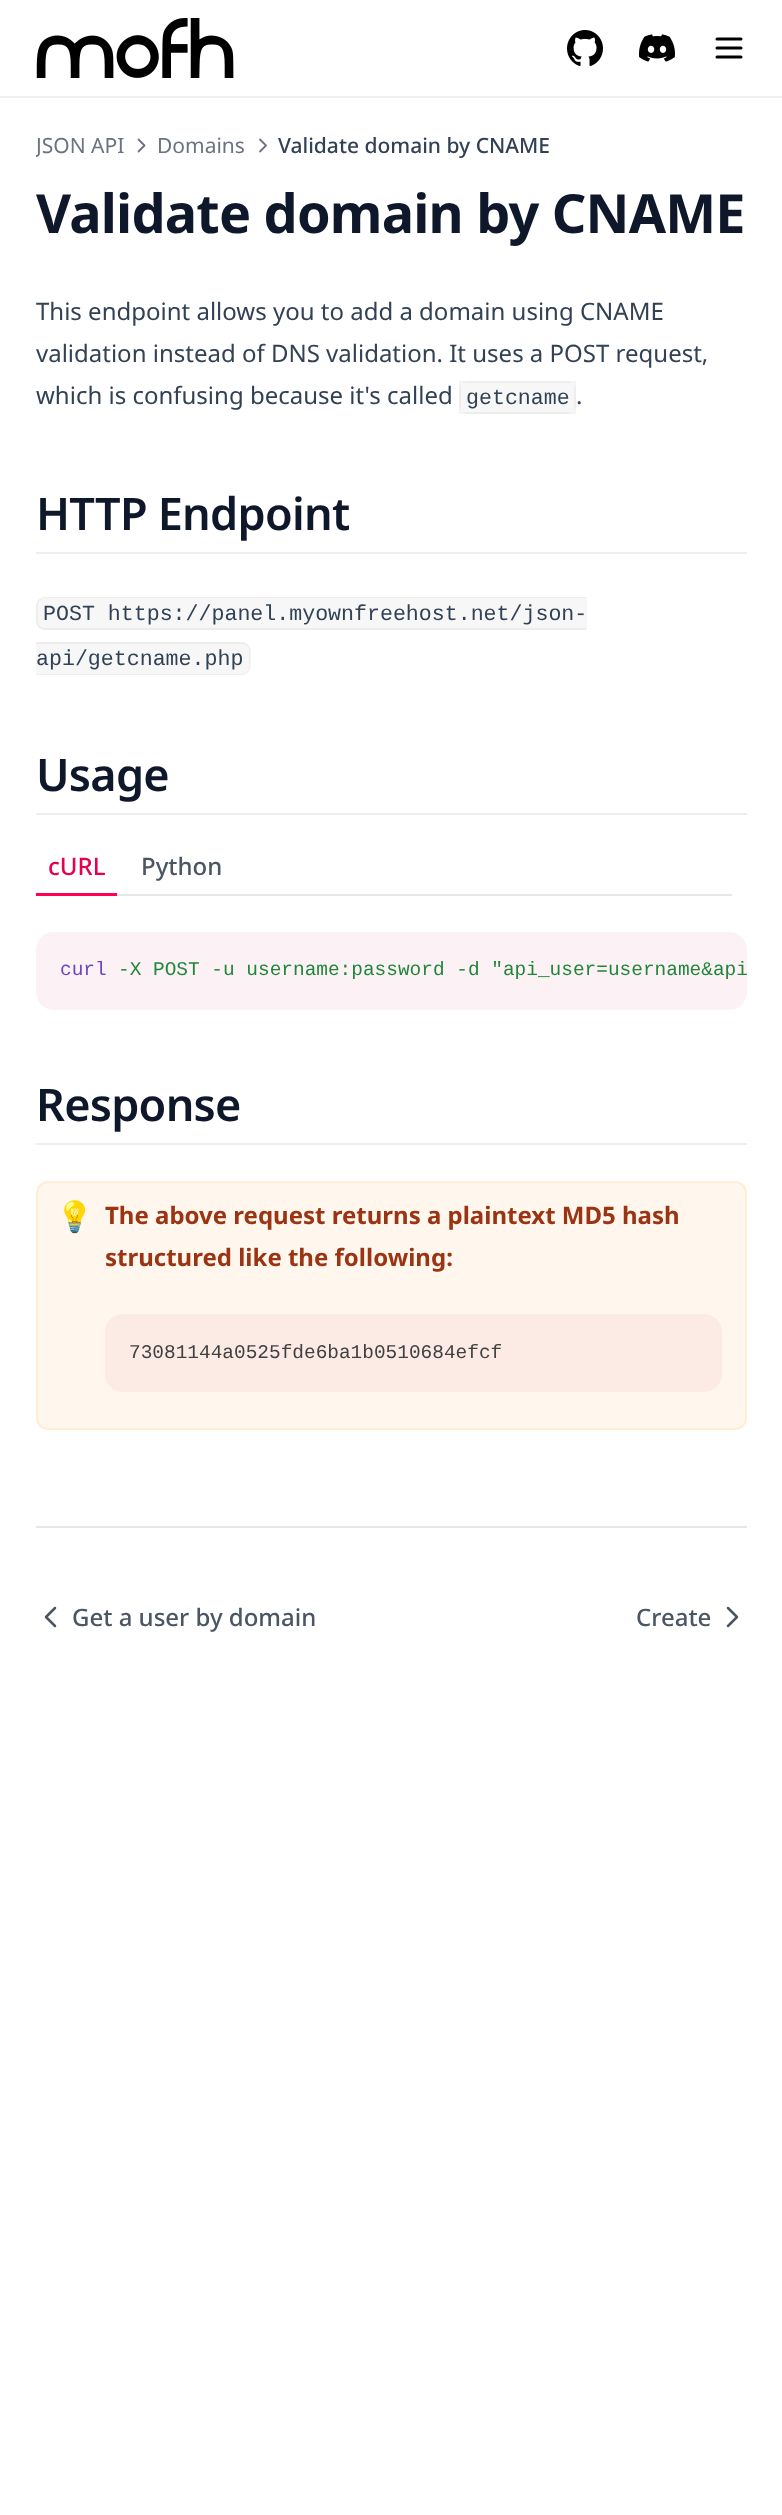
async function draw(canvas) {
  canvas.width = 782;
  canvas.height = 2515;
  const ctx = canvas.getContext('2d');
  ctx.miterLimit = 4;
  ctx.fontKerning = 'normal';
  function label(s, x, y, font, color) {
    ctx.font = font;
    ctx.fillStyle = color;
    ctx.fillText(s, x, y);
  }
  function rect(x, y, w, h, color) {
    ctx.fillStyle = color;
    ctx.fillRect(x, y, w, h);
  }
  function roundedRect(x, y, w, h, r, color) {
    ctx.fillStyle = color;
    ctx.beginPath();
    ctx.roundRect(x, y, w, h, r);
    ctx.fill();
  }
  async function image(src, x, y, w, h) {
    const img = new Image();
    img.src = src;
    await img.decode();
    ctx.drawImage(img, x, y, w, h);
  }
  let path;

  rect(0, 0, 782, 2515, '#fff');
  await image('assets/img1.png', 36, 18, 198, 60);
  await image('assets/img2.png', 567, 30, 36, 36);
  await image('assets/img3.png', 639, 34, 36, 28);
  path = new Path2D('M717 39H741M717 48H741M717 57H741');
  ctx.strokeStyle = '#000';
  ctx.lineWidth = 3;
  ctx.lineCap = 'round';
  ctx.lineJoin = 'round';
  ctx.stroke(path);
  rect(0, 96, 782, 2, '#f0f0f0');
  ctx.save();
  ctx.beginPath();
  ctx.rect(36, 129, 89, 32);
  ctx.clip();
  label('JSON API', 36, 153, '21px Noto Sans', '#6b7280');
  ctx.restore();
  path = new Path2D('M138.5 139.5L144.5 145.5L138.5 151.5');
  ctx.strokeStyle = '#6b7280';
  ctx.lineWidth = 1.8;
  ctx.stroke(path);
  label('Domains', 157, 153, '21px Noto Sans', '#6b7280');
  path = new Path2D('M260 139.5L266 145.5L260 151.5');
  ctx.stroke(path);
  label('Validate domain by CNAME', 278, 153, '500 21px Noto Sans', '#334155');
  ctx.letterSpacing = '-0.8px';
  label('Validate domain by CNAME', 36, 233, 'bold 54px Noto Sans', '#0f172a');
  ctx.letterSpacing = '0px';
  label('This endpoint allows you to add a domain using CNAME', 36, 320, '24px Noto Sans', '#334155');
  label('validation instead of DNS validation. It uses a POST request,', 36, 362, '24px Noto Sans', '#334155');
  label('which is confusing because it\'s called', 36, 404, '24px Noto Sans', '#334155');
  roundedRect(459, 381, 117, 33, 9, '#f7f7f7');
  ctx.strokeStyle = '#0000000a';
  ctx.lineWidth = 2;
  ctx.lineJoin = 'miter';
  ctx.strokeRect(460, 382, 115, 31);
  label('getcname', 466, 404, '21.6px Liberation Mono', '#334155');
  label('.', 576, 404, '24px Noto Sans', '#334155');
  rect(36, 552, 711, 2, '#eee');
  ctx.letterSpacing = '-0.75px';
  label('HTTP Endpoint', 36, 530, '600 45px Noto Sans', '#0f172a');
  ctx.fillStyle = '#f7f7f7';
  ctx.beginPath();
  ctx.roundRect(36, 597, 551, 33, [9, 0, 0, 9]);
  ctx.fill();
  ctx.fillStyle = '#0000000a';
  path = new Path2D('M45 597H586V630H45C40 630 36 626 36 621V606C36 601 40 597 45 597ZM45 598H586V628H45C41 628 38 625 38 621V606C38 602 41 598 45 598Z');
  ctx.fill(path, 'evenodd');
  ctx.letterSpacing = '0px';
  label('POST https://panel.myownfreehost.net/json-', 43, 620, '21.6px Liberation Mono', '#334155');
  ctx.fillStyle = '#f7f7f7';
  ctx.beginPath();
  ctx.roundRect(36, 642, 215, 33, [0, 9, 9, 0]);
  ctx.fill();
  ctx.fillStyle = '#ededed';
  path = new Path2D('M36 642H242C246 642 250 646 250 651V666C250 671 246 675 242 675H36ZM36 644H242C246 644 249 647 249 651V666C249 670 246 674 242 674H36Z');
  ctx.fill(path, 'evenodd');
  label('api/getcname.php', 36, 665, '21.6px Liberation Mono', '#334155');
  rect(36, 813, 711, 2, '#eee');
  ctx.letterSpacing = '-0.75px';
  label('Usage', 36, 791, '600 45px Noto Sans', '#0f172a');
  rect(117, 894, 615, 2, '#e5e7eb');
  rect(36, 893, 81, 3, '#f05');
  ctx.letterSpacing = '0px';
  label('cURL', 48, 875, '500 24px Noto Sans', '#e6004d');
  label('Python', 141, 875, '500 24px Noto Sans', '#4b5563');
  roundedRect(36, 932, 711, 78, 18, '#fcf2f6');
  label('curl', 60, 975, '19.45px Liberation Mono', '#6f42c1');
  label('-X POST -u username:password -d "api_user=username&api', 118, 975, '19.45px Liberation Mono', '#22863a');
  rect(36, 1143, 711, 2, '#eee');
  ctx.letterSpacing = '-0.75px';
  label('Response', 36, 1121, '600 45px Noto Sans', '#0f172a');
  ctx.fillStyle = '#fff7ed';
  ctx.beginPath();
  ctx.roundRect(37, 1182, 709, 247, 11);
  ctx.fill();
  ctx.strokeStyle = '#ffedd5';
  ctx.stroke();
  ctx.letterSpacing = '0px';
  label('💡', 56, 1227, '30px Noto Color Emoji', '#9a3412');
  label('The above request returns a plaintext MD5 hash', 105, 1224, 'bold 24px Noto Sans', '#9a3412');
  label('structured like the following:', 105, 1266, 'bold 24px Noto Sans', '#9a3412');
  roundedRect(105, 1314, 617, 78, 18, '#fcebe4');
  label('73081144a0525fde6ba1b0510684efcf', 129, 1358, '19.45px Liberation Mono', '#414141');
  rect(36, 1526, 711, 2, '#e5e7eb');
  path = new Path2D('M55 1626L46 1617L55 1608');
  ctx.strokeStyle = '#4b5563';
  ctx.lineWidth = 2.5;
  ctx.lineJoin = 'round';
  ctx.stroke(path);
  label('Get a user by domain', 72, 1626, '500 24px Noto Sans', '#4b5563');
  label('Create', 636, 1626, '500 24px Noto Sans', '#4b5563');
  path = new Path2D('M728 1608L737 1617L728 1626');
  ctx.stroke(path);
}

draw(document.querySelector('canvas'));
